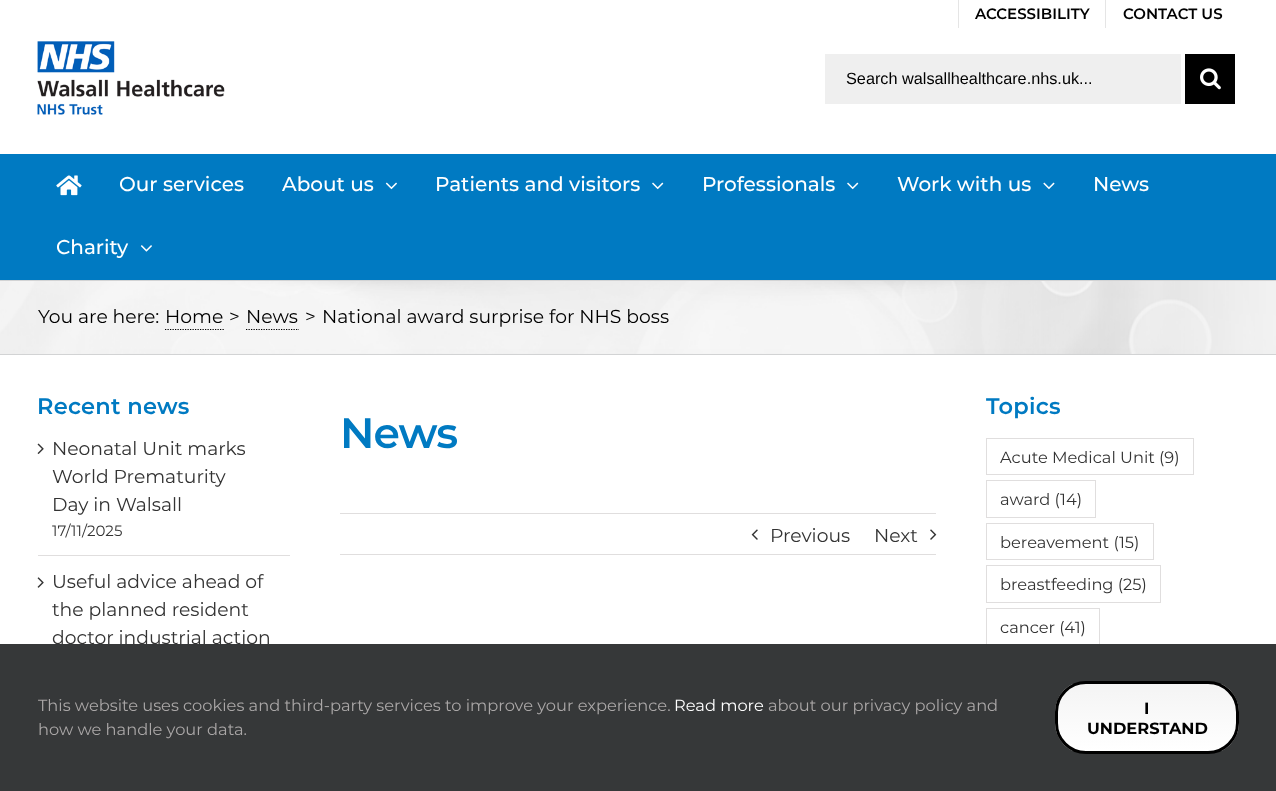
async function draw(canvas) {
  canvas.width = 1276;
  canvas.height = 791;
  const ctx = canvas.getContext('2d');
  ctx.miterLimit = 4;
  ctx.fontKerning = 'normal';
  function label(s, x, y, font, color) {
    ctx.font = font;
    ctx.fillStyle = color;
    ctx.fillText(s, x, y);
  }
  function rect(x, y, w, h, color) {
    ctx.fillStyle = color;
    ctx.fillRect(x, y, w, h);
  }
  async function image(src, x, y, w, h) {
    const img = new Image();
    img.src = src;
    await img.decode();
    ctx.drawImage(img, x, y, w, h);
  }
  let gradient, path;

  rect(0, 0, 1276, 791, '#fff');
  rect(958, 0, 1, 28, '#e5e5e5');
  label('ACCESSIBILITY', 975, 19, '100 15px "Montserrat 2"', '#000');
  rect(1105, 0, 1, 28, '#e5e5e5');
  label('CONTACT US', 1123, 19, '100 15px "Montserrat 2"', '#000');
  await image('assets/img1.png', 37, 41, 188, 74);
  rect(825, 54, 356, 50, '#efefef');
  label('Search walsallhealthcare.nhs.uk...', 846, 84, '16.25px Liberation Sans', '#000');
  rect(1185, 54, 50, 50, '#000');
  await image('assets/img2.png', 1200, 68, 21, 22);
  rect(0, 154, 1276, 126, '#007ac2');
  await image('assets/img3.png', 56, 175, 26, 21);
  label('Our services', 119, 191, '100 20px "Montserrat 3"', '#fff');
  label('About us', 282, 191, '100 20px "Montserrat 3"', '#fff');
  await image('assets/img4.png', 385, 182, 12, 8);
  label('Patients and visitors', 435, 191, '100 20px "Montserrat 3"', '#fff');
  await image('assets/img5.png', 652, 182, 12, 8);
  label('Professionals', 702, 191, '100 20px "Montserrat 3"', '#fff');
  await image('assets/img5.png', 847, 182, 12, 8);
  label('Work with us', 897, 191, '100 20px "Montserrat 3"', '#fff');
  await image('assets/img6.png', 1043, 182, 12, 8);
  label('News', 1093, 191, '100 20px "Montserrat 3"', '#fff');
  label('Charity', 56, 254, '100 20px "Montserrat 3"', '#fff');
  await image('assets/img7.png', 140, 245, 12, 7);
  rect(0, 281, 1276, 73, '#f6f6f6');
  await image('assets/img8.png', 0, 281, 1276, 73);
  rect(0, 280, 1276, 1, '#d2d3d4');
  rect(0, 354, 1276, 1, '#d2d3d4');
  label('You are here:', 38, 323, '100 18.75px Montserrat', '#000');
  path = new Path2D('M165 329.5H224');
  ctx.strokeStyle = '#000';
  ctx.lineWidth = 1.2;
  ctx.setLineDash([1.25, 1.25]);
  ctx.stroke(path);
  label('Home', 165, 323, '100 18.75px Montserrat', '#000');
  label('>', 229, 323, '100 18.75px Montserrat', '#000');
  path = new Path2D('M246 329.5H299');
  ctx.stroke(path);
  label('News', 246, 323, '100 18.75px Montserrat', '#000');
  label('>', 305, 323, '100 18.75px Montserrat', '#000');
  label('National award surprise for NHS boss', 322, 323, '100 18.75px Montserrat', '#000');
  ctx.letterSpacing = '0.25px';
  label('Recent news', 37, 414, '100 22.5px "Montserrat 2"', '#007ac2');
  rect(38, 555, 252, 1, '#e0dede');
  await image('assets/img9.png', 37, 443, 7, 11);
  ctx.letterSpacing = '0px';
  label('Neonatal Unit marks', 52, 455, '100 18.75px Montserrat', '#333');
  label('World Prematurity', 52, 483, '100 18.75px Montserrat', '#333');
  label('Day in Walsall', 52, 511, '100 18.75px Montserrat', '#333');
  label('17/11/2025', 52, 536, '100 15px Montserrat', '#333');
  await image('assets/img10.png', 37, 577, 7, 11);
  label('Useful advice ahead of', 52, 588, '100 18.75px Montserrat', '#333');
  label('the planned resident', 52, 616, '100 18.75px Montserrat', '#333');
  label('doctor industrial action', 52, 644, '100 18.75px Montserrat', '#333');
  ctx.letterSpacing = '-1px';
  label('News', 340, 448, '100 42.5px "Montserrat 2"', '#007ac2');
  rect(340, 513, 596, 1, '#e0dede');
  rect(340, 554, 596, 1, '#e0dede');
  await image('assets/img11.png', 751, 529, 7, 11);
  ctx.letterSpacing = '0px';
  label('Previous', 770, 542, '100 18.75px Montserrat', '#333');
  label('Next', 874, 542, '100 18.75px Montserrat', '#333');
  await image('assets/img12.png', 930, 529, 7, 11);
  ctx.letterSpacing = '0.25px';
  label('Topics', 986, 414, '100 22.5px "Montserrat 2"', '#007ac2');
  ctx.strokeStyle = '#e0dede';
  ctx.lineWidth = 1;
  ctx.setLineDash([]);
  ctx.strokeRect(986.5, 438.5, 207, 36);
  ctx.letterSpacing = '0px';
  label('Acute Medical Unit (9)', 1000, 463, '100 16.25px Montserrat', '#333');
  ctx.strokeRect(986.5, 480.5, 109, 37);
  label('award (14)', 1000, 505, '100 16.25px Montserrat', '#333');
  ctx.strokeRect(986.5, 523.5, 167, 36);
  label('bereavement (15)', 1000, 548, '100 16.25px Montserrat', '#333');
  ctx.strokeRect(986.5, 565.5, 174, 37);
  label('breastfeeding (25)', 1000, 590, '100 16.25px Montserrat', '#333');
  ctx.strokeRect(986.5, 608.5, 113, 36);
  label('cancer (41)', 1000, 633, '100 16.25px Montserrat', '#333');
  rect(0, 644, 1276, 147, '#363839');
  label('This website uses cookies and third-party services to improve your experience.', 38, 711, '100 16.25px Montserrat', '#aaa7a7');
  label('Read more', 674, 711, '100 16.25px Montserrat', '#fff');
  label('about our privacy policy and', 768, 711, '100 16.25px Montserrat', '#aaa7a7');
  label('how we handle your data.', 38, 735, '100 16.25px Montserrat', '#aaa7a7');
  ctx.save();
  ctx.beginPath();
  ctx.roundRect(1055, 681, 184, 73, 31);
  ctx.clip();
  gradient = ctx.createLinearGradient(1147, 751, 1147, 684);
  gradient.addColorStop(0, '#fff');
  gradient.addColorStop(1, '#f4f4f4');
  ctx.fillStyle = gradient;
  ctx.fillRect(1055, 684, 184, 67);
  ctx.restore();
  ctx.beginPath();
  ctx.roundRect(1056.5, 682.5, 181, 70, 29.5);
  ctx.strokeStyle = '#000';
  ctx.lineWidth = 3;
  ctx.stroke();
  label('I', 1144, 714, '100 16.25px "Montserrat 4"', '#000');
  label('UNDERSTAND', 1087, 734, '100 16.25px "Montserrat 4"', '#000');
}

draw(document.querySelector('canvas'));
